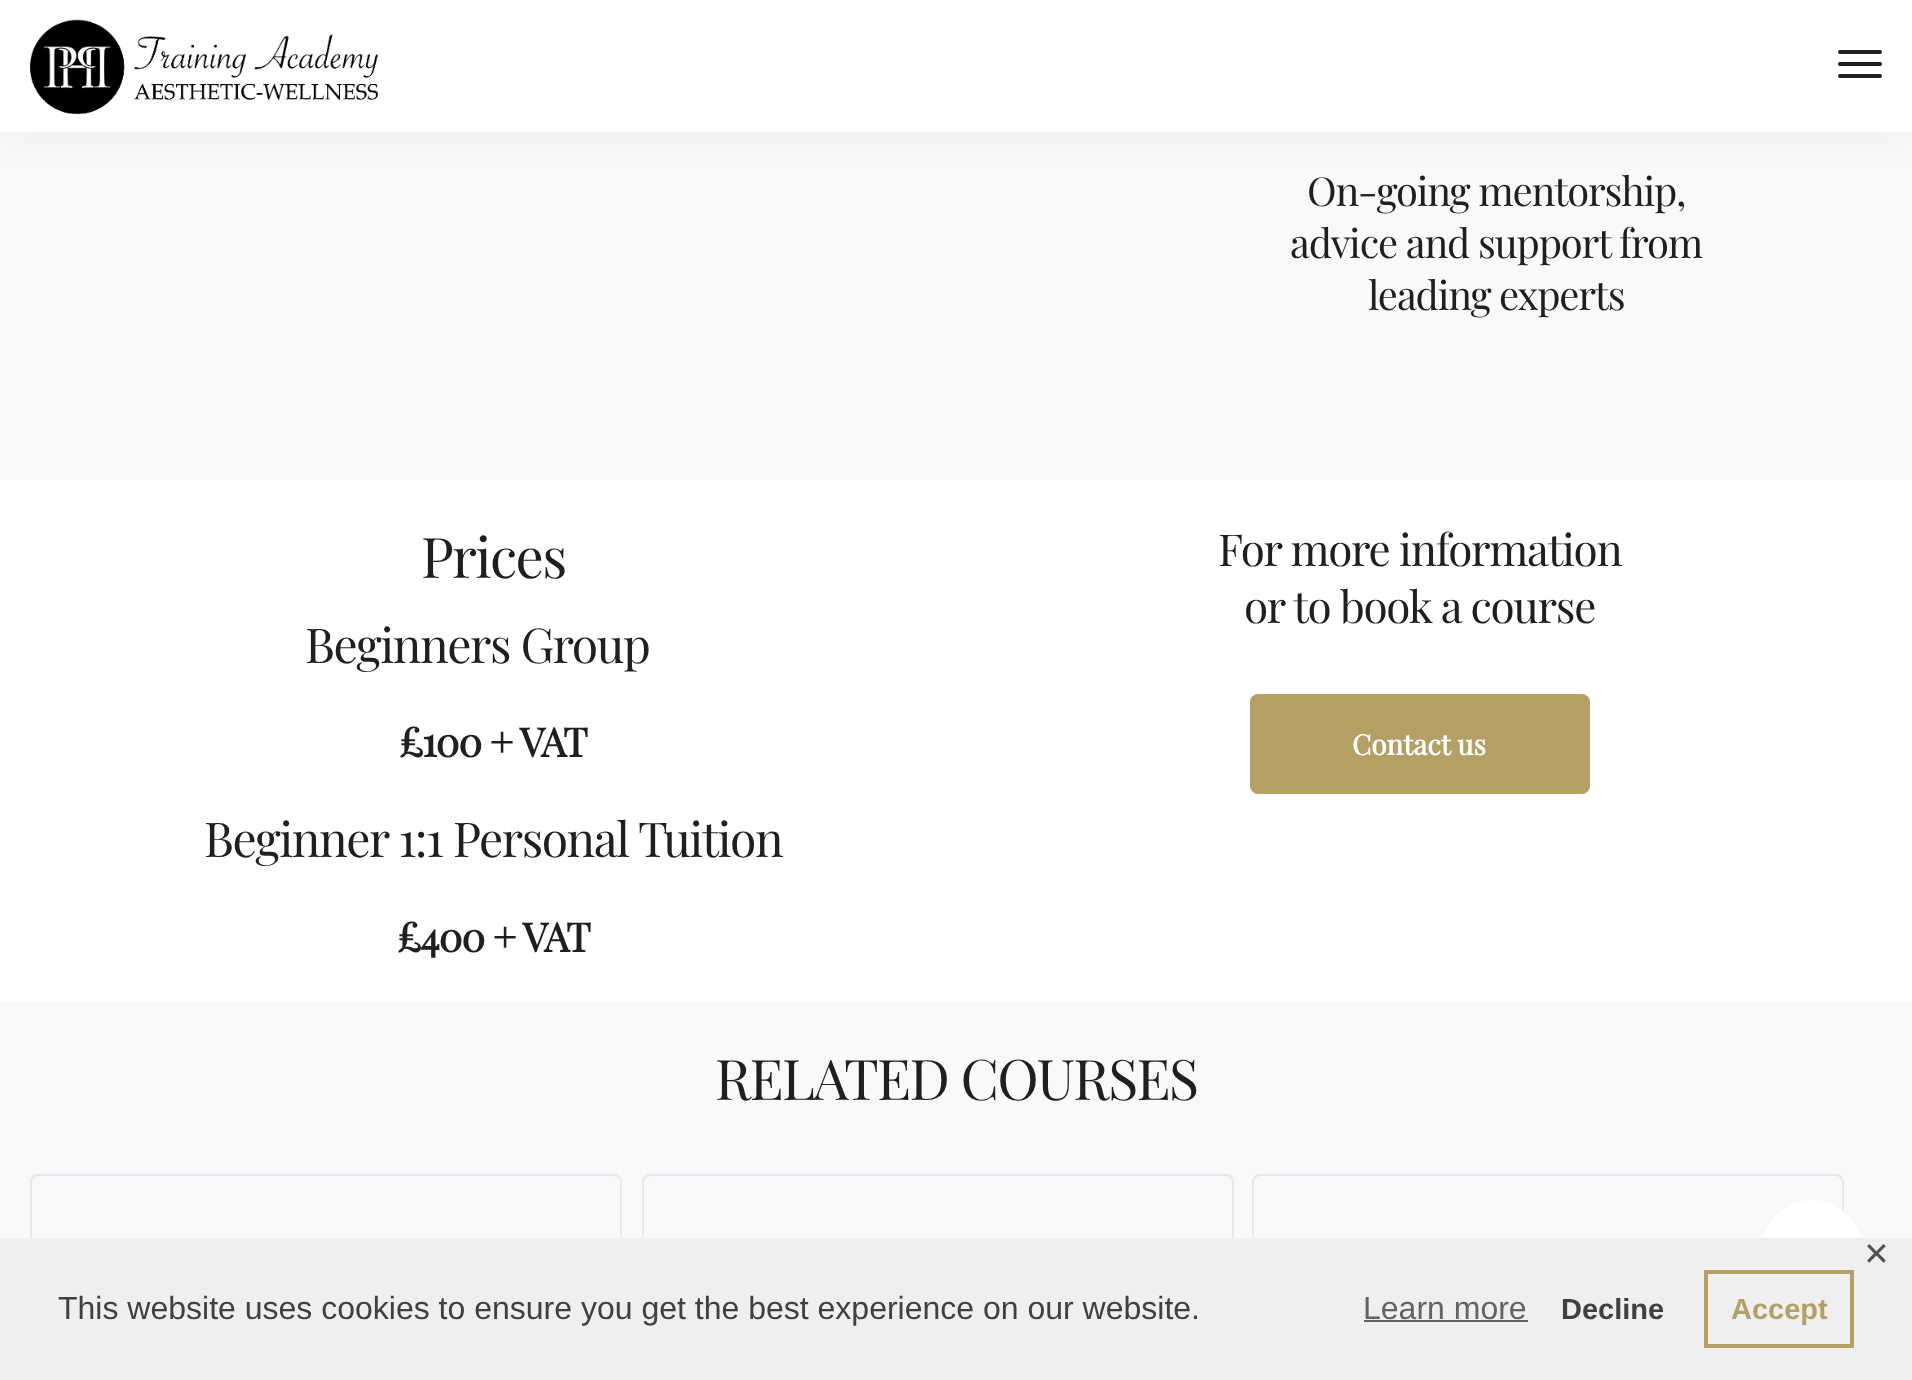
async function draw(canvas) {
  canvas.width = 1912;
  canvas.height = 1380;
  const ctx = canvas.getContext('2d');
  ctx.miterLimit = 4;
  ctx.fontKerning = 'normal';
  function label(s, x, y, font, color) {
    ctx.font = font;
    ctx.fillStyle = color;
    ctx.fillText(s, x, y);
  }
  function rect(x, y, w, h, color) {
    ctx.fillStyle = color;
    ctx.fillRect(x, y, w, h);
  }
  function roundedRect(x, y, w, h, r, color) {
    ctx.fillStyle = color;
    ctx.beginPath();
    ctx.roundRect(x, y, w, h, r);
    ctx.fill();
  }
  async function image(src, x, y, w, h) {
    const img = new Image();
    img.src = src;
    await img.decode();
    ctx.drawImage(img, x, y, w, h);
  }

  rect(0, 0, 1912, 1380, '#fff');
  rect(0, 132, 1912, 348, '#f9f9f9');
  ctx.fillStyle = '#0000000d';
  ctx.filter = 'blur(20px)';
  ctx.beginPath();
  ctx.rect(0, 0, 1912, 132);
  ctx.fill();
  ctx.filter = 'none';
  rect(0, 0, 1912, 132, '#fff');
  await image('assets/img1.png', 30, 19, 348, 95);
  roundedRect(1838, 50, 44, 4, 2, '#1f1f1f');
  roundedRect(1838, 62, 44, 4, 2, '#1f1f1f');
  roundedRect(1838, 74, 44, 4, 2, '#1f1f1f');
  ctx.letterSpacing = '-1.2px';
  label('On-going mentorship,', 1307, 206, '40px Playfair Display', '#1f1f1f');
  label('advice and support from', 1290, 258, '40px Playfair Display', '#1f1f1f');
  label('leading experts', 1368, 310, '40px Playfair Display', '#1f1f1f');
  ctx.letterSpacing = '-1.7px';
  label('Prices', 421, 578, '56px Playfair Display', '#1f1f1f');
  ctx.letterSpacing = '-1.45px';
  label('Beginners Group', 305, 663, '48px Playfair Display', '#1f1f1f');
  ctx.letterSpacing = '-1.2px';
  label('£100 + VAT', 399, 757, 'bold 40px Playfair Display', '#1f1f1f');
  ctx.letterSpacing = '-1.45px';
  label('Beginner 1:1 Personal Tuition', 204, 857, '48px Playfair Display', '#1f1f1f');
  ctx.letterSpacing = '-1.2px';
  label('£400 + VAT', 397, 952, 'bold 40px Playfair Display', '#1f1f1f');
  ctx.letterSpacing = '-1.3px';
  label('For more information', 1218, 566, '44px Playfair Display', '#1f1f1f');
  label('or to book a course', 1244, 623, '44px Playfair Display', '#1f1f1f');
  ctx.fillStyle = '#b4a064';
  ctx.beginPath();
  ctx.roundRect(1252, 696, 336, 96, 6);
  ctx.fill();
  ctx.strokeStyle = '#b4a064';
  ctx.lineWidth = 4;
  ctx.stroke();
  ctx.letterSpacing = '0px';
  label('Contact us', 1352, 755, 'bold 28px Playfair Display', '#fff');
  rect(0, 1002, 1912, 236, '#f9f9f9');
  ctx.letterSpacing = '-1.7px';
  label('RELATED COURSES', 715, 1100, '56px Playfair Display', '#1f1f1f');
  ctx.beginPath();
  ctx.roundRect(31, 1175, 590, 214, 7);
  ctx.strokeStyle = '#e5e7f2';
  ctx.lineWidth = 2;
  ctx.stroke();
  ctx.beginPath();
  ctx.roundRect(643, 1175, 590, 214, 7);
  ctx.stroke();
  ctx.beginPath();
  ctx.roundRect(1253, 1175, 590, 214, 7);
  ctx.stroke();
  ctx.fillStyle = '#fff';
  ctx.beginPath();
  ctx.arc(1812, 1250, 50, 0, 2 * Math.PI);
  ctx.fill();
  rect(0, 1238, 1912, 142, '#efefef');
  ctx.letterSpacing = '0px';
  label('✕', 1863, 1265, '32px DejaVu Sans', '#525252');
  label('This website uses cookies to ensure you get the best experience on our website.', 58, 1319, '32px Liberation Sans', '#404040');
  label('Learn more', 1363, 1319, '32px Liberation Sans', '#636363');
  rect(1364, 1320, 164, 2, '#636363');
  label('Decline', 1561, 1319, 'bold 29px Liberation Sans', '#404040');
  ctx.strokeStyle = '#b4a064';
  ctx.lineWidth = 4;
  ctx.strokeRect(1706, 1272, 146, 74);
  label('Accept', 1731, 1319, 'bold 29px Liberation Sans', '#b4a064');
}

draw(document.querySelector('canvas'));
